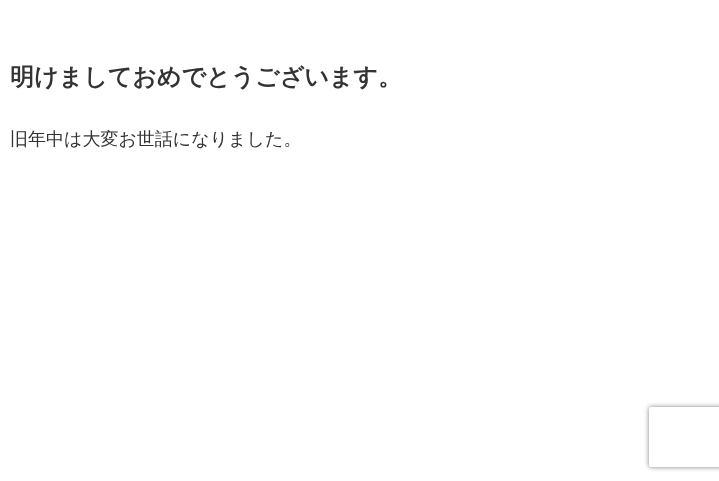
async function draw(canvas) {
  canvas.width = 719;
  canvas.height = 481;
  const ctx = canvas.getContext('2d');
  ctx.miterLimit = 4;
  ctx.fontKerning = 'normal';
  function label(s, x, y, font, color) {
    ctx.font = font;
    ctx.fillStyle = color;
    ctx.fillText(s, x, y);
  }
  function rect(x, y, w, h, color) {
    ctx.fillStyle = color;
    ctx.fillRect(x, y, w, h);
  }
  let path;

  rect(0, 0, 719, 481, '#fff');
  label('明けましておめでとうございます。', 10, 85, 'bold 24px WenQuanYi Zen Hei', '#333');
  label('旧年中は大変お世話になりました。', 10, 145, '500 18px WenQuanYi Zen Hei', '#333');
  ctx.save();
  path = new Path2D('M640 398H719V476H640ZM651 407H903C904 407 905 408 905 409V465C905 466 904 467 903 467H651C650 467 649 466 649 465V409C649 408 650 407 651 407Z');
  ctx.clip(path, 'evenodd');
  ctx.fillStyle = '#808080';
  ctx.filter = 'blur(2.5px)';
  ctx.beginPath();
  ctx.roundRect(649, 407, 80, 60, 2);
  ctx.fill();
  ctx.filter = 'none';
  ctx.restore();
}

draw(document.querySelector('canvas'));
